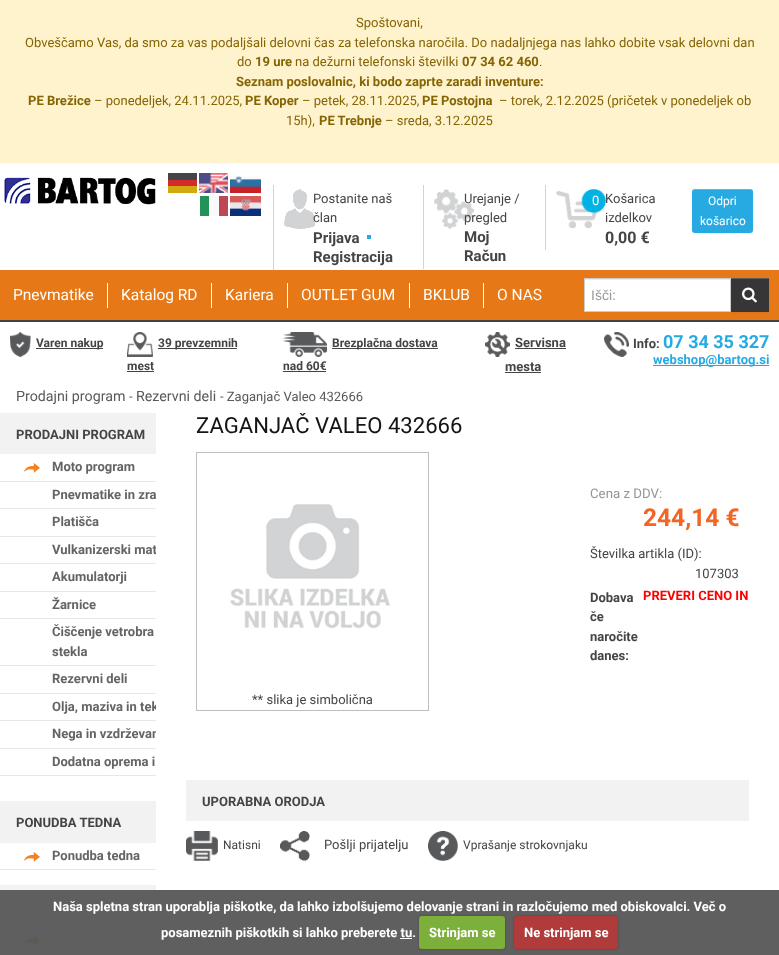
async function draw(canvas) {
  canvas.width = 779;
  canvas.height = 955;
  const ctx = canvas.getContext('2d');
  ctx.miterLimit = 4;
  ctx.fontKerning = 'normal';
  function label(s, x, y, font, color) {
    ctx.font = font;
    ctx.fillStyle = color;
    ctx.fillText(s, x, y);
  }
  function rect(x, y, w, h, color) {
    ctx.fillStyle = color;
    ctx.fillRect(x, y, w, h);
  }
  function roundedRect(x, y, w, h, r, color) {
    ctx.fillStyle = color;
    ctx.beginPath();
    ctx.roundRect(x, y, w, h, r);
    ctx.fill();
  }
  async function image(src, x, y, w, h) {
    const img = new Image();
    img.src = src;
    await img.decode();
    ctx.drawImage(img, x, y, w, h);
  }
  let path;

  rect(0, 0, 779, 955, '#fff');
  rect(0, 0, 779, 163, '#fff3cd');
  label('Spoštovani,', 356, 27, '13px Roboto', '#856404');
  label('Obveščamo Vas, da smo za vas podaljšali delovni čas za telefonska naročila. Do nadaljnjega nas lahko dobite vsak delovni dan', 25, 47, '13px Roboto', '#856404');
  label('do', 237, 66, '13px Roboto', '#856404');
  label('19 ure', 255, 66, 'bold 13px Roboto', '#856404');
  label('na dežurni telefonski številki', 295, 66, '13px Roboto', '#856404');
  label('07 34 62 460', 462, 66, 'bold 13px Roboto', '#856404');
  label('.', 539, 66, '13px Roboto', '#856404');
  label('Seznam poslovalnic, ki bodo zaprte zaradi inventure:', 236, 86, 'bold 13px Roboto', '#856404');
  label('PE Brežice', 28, 105, 'bold 13px Roboto', '#856404');
  label('– ponedeljek, 24.11.2025,', 94, 105, '13px Roboto', '#856404');
  label('PE Koper', 245, 105, 'bold 13px Roboto', '#856404');
  label('– petek, 28.11.2025,', 302, 105, '13px Roboto', '#856404');
  label('PE Postojna', 422, 105, 'bold 13px Roboto', '#856404');
  label('– torek, 2.12.2025 (pričetek v ponedeljek ob', 499, 105, '13px Roboto', '#856404');
  label('15h),', 286, 125, '13px Roboto', '#856404');
  label('PE Trebnje', 319, 125, 'bold 13px Roboto', '#856404');
  label('– sreda, 3.12.2025', 385, 125, '13px Roboto', '#856404');
  await image('assets/img1.png', 4, 177, 152, 28);
  await image('assets/img2.png', 168, 173, 29, 20);
  await image('assets/img3.png', 199, 173, 29, 20);
  await image('assets/img4.png', 230, 176, 31, 17);
  await image('assets/img5.png', 200, 196, 28, 20);
  await image('assets/img6.png', 230, 196, 31, 20);
  rect(273, 185, 1, 85, '#d2d3d5');
  await image('assets/img7.png', 284, 189, 31, 40);
  label('Postanite naš', 313, 203, '13px Roboto', '#444');
  label('član', 313, 222, '13px Roboto', '#444');
  label('Prijava', 313, 243, 'bold 15px Roboto', '#444');
  rect(367, 235, 4, 4, '#27aae2');
  label('Registracija', 313, 262, 'bold 15px Roboto', '#444');
  rect(423, 185, 1, 84, '#d2d3d5');
  await image('assets/img8.png', 434, 189, 40, 40);
  label('Urejanje /', 464, 203, '13px Roboto', '#444');
  label('pregled', 464, 222, '13px Roboto', '#444');
  label('Moj', 464, 242, 'bold 15px Roboto', '#444');
  label('Račun', 464, 261, 'bold 15px Roboto', '#444');
  rect(545, 185, 1, 65, '#d2d3d5');
  await image('assets/img9.png', 556, 189, 50, 40);
  label('Košarica', 605, 203, '13px Roboto', '#444');
  label('izdelkov', 605, 222, '13px Roboto', '#444');
  label('0,00 €', 605, 243, 'bold 16px Roboto', '#444');
  label('0', 592, 205, '13px Roboto', '#fff');
  ctx.fillStyle = '#0000000d';
  ctx.filter = 'blur(1px)';
  ctx.beginPath();
  ctx.roundRect(692, 190, 61, 44, 3);
  ctx.fill();
  ctx.filter = 'none';
  roundedRect(692, 189, 61, 44, 3, '#27aae2');
  ctx.fillStyle = '#ffffff33';
  path = new Path2D('M695 190H750C752 190 753 191 753 193C753 187 745 189 741 189H704C700 189 692 187 692 193C692 191 693 190 695 190Z');
  ctx.fill(path);
  label('Odpri', 708, 205, '12px Roboto', '#fff');
  label('košarico', 700, 225, '12px Roboto', '#fff');
  rect(0, 270, 779, 50, '#e67817');
  rect(0, 320, 779, 2, '#414143');
  label('Pnevmatike', 13, 300, '15.5px Roboto', '#fff');
  rect(107, 283, 1, 25, '#fff');
  label('Katalog RD', 121, 300, '15.5px Roboto', '#fff');
  rect(211, 283, 1, 25, '#fff');
  label('Kariera', 225, 300, '15.5px Roboto', '#fff');
  rect(287, 283, 1, 25, '#fff');
  label('OUTLET GUM', 301, 300, '15.5px Roboto', '#fff');
  rect(409, 283, 1, 25, '#fff');
  label('BKLUB', 423, 300, '15.5px Roboto', '#fff');
  rect(483, 283, 1, 25, '#fff');
  label('O NAS', 497, 300, '15.5px Roboto', '#fff');
  ctx.fillStyle = '#0000000d';
  ctx.filter = 'blur(1px)';
  ctx.beginPath();
  ctx.rect(731, 279, 38, 34);
  ctx.fill();
  ctx.filter = 'none';
  rect(585, 280, 145, 31, '#fff');
  rect(585, 279, 145, 1, '#ececec');
  ctx.strokeStyle = '#ccc';
  ctx.strokeRect(584.5, 278.5, 146, 33);
  label('Išči:', 591, 300, '14px Liberation Sans', '#999');
  rect(731, 279, 38, 33, '#363636');
  rect(731, 278, 38, 1, '#5e5e5e');
  await image('assets/img10.png', 742, 287, 15, 16);
  await image('assets/img11.png', 10, 332, 21, 25);
  rect(36, 348, 67, 1, '#444');
  label('Varen nakup', 36, 347, 'bold 12px Roboto', '#444');
  await image('assets/img12.png', 127, 332, 26, 25);
  rect(158, 348, 79, 1, '#444');
  label('39 prevzemnih', 158, 347, 'bold 12px Roboto', '#444');
  label('mest', 127, 370, 'bold 12px Roboto', '#444');
  rect(127, 371, 27, 1, '#444');
  await image('assets/img13.png', 283, 332, 44, 25);
  rect(332, 348, 106, 1, '#444');
  label('Brezplačna dostava', 332, 347, 'bold 12px Roboto', '#444');
  label('nad 60€', 283, 370, 'bold 12px Roboto', '#444');
  rect(283, 371, 43, 1, '#444');
  await image('assets/img14.png', 485, 332, 25, 25);
  label('Servisna', 515, 347, 'bold 13px Roboto', '#444');
  rect(515, 348, 51, 1, '#444');
  label('mesta', 505, 371, 'bold 13px Roboto', '#444');
  rect(505, 372, 36, 1, '#444');
  await image('assets/img15.png', 604, 332, 25, 25);
  label('Info:', 633, 348, 'bold 13px Roboto', '#444');
  label('07 34 35 327', 663, 348, 'bold 18px Roboto', '#27aae2');
  rect(653, 365, 116, 1, '#27aae2');
  label('webshop@bartog.si', 653, 364, 'bold 13px Roboto', '#27aae2');
  label('Prodajni program', 16, 401, '14.25px Roboto', '#58595b');
  label('-', 129, 401, '13px Roboto', '#58595b');
  label('Rezervni deli', 136, 401, '14.25px Roboto', '#58595b');
  label('- Zaganjač Valeo 432666', 220, 401, '13px Roboto', '#58595b');
  rect(0, 413, 156, 41, '#f2f2f2');
  label('PRODAJNI PROGRAM', 16, 439, 'bold 13px Roboto', '#444');
  await image('assets/img16.png', 24, 463, 16, 10);
  rect(0, 481, 156, 1, '#e6e7e8');
  label('Moto program', 52, 471, 'bold 13px Roboto', '#646464');
  rect(0, 508, 156, 1, '#e6e7e8');
  label('Pnevmatike in zra', 52, 499, 'bold 13px Roboto', '#646464');
  rect(0, 536, 156, 1, '#e6e7e8');
  label('Platišča', 52, 526, 'bold 13px Roboto', '#646464');
  rect(0, 563, 156, 1, '#e6e7e8');
  ctx.save();
  ctx.beginPath();
  ctx.rect(0, 538, 156, 25);
  ctx.clip();
  label('Vulkanizerski mat', 52, 554, 'bold 13px Roboto', '#646464');
  ctx.restore();
  rect(0, 591, 156, 1, '#e6e7e8');
  label('Akumulatorji', 52, 581, 'bold 13px Roboto', '#646464');
  rect(0, 618, 156, 1, '#e6e7e8');
  label('Žarnice', 52, 609, 'bold 13px Roboto', '#646464');
  rect(0, 665, 156, 1, '#e6e7e8');
  label('Čiščenje vetrobra', 52, 636, 'bold 13px Roboto', '#646464');
  label('stekla', 52, 656, 'bold 13px Roboto', '#646464');
  rect(0, 693, 156, 1, '#e6e7e8');
  label('Rezervni deli', 52, 683, 'bold 13px Roboto', '#646464');
  rect(0, 720, 156, 1, '#e6e7e8');
  ctx.save();
  ctx.beginPath();
  ctx.rect(0, 695, 156, 25);
  ctx.clip();
  label('Olja, maziva in tek', 52, 711, 'bold 13px Roboto', '#646464');
  ctx.restore();
  rect(0, 748, 156, 1, '#e6e7e8');
  ctx.save();
  ctx.beginPath();
  ctx.rect(0, 722, 156, 26);
  ctx.clip();
  label('Nega in vzdrževan', 52, 738, 'bold 13px Roboto', '#646464');
  ctx.restore();
  rect(0, 775, 156, 1, '#e6e7e8');
  label('Dodatna oprema i', 52, 766, 'bold 13px Roboto', '#646464');
  rect(0, 801, 156, 42, '#f2f2f2');
  label('PONUDBA TEDNA', 16, 827, 'bold 13px Roboto', '#444');
  await image('assets/img16.png', 24, 852, 16, 10);
  rect(0, 869, 156, 1, '#e6e7e8');
  label('Ponudba tedna', 52, 860, 'bold 13px Roboto', '#646464');
  rect(0, 885, 156, 42, '#f2f2f2');
  await image('assets/img16.png', 24, 936, 16, 10);
  ctx.save();
  ctx.beginPath();
  ctx.rect(196, 413, 543, 29);
  ctx.clip();
  label('ZAGANJAČ VALEO 432666', 196, 433, '22.1px Roboto', '#141414');
  ctx.restore();
  label('Cena z DDV:', 590, 498, '13.25px Roboto', '#939598');
  label('244,14 €', 643, 526, 'bold 24.5px Roboto', '#f26522');
  label('Številka artikla (ID):', 590, 558, '13px Roboto', '#444');
  label('107303', 695, 578, '13px Roboto', '#444');
  label('Dobava', 590, 602, 'bold 13px Roboto', '#444');
  label('če', 590, 621, 'bold 13px Roboto', '#444');
  label('naročite', 590, 641, 'bold 13px Roboto', '#444');
  label('danes:', 590, 660, 'bold 13px Roboto', '#444');
  label('PREVERI CENO IN', 643, 600, 'bold 13px Roboto', '#f00');
  ctx.strokeStyle = '#bdbec0';
  ctx.strokeRect(196.5, 452.5, 232, 258);
  await image('assets/img17.png', 230, 504, 160, 125);
  label('** slika je simbolična', 252, 704, '13px Roboto', '#444');
  rect(186, 780, 563, 41, '#f2f2f2');
  label('UPORABNA ORODJA', 202, 806, 'bold 13px Roboto', '#444');
  await image('assets/img18.png', 186, 831, 32, 30);
  label('Natisni', 223, 849, '12px Roboto', '#444');
  await image('assets/img19.png', 280, 831, 30, 30);
  label('Pošlji prijatelju', 324, 849, '13px Roboto', '#444');
  await image('assets/img20.png', 428, 831, 30, 30);
  label('Vprašanje strokovnjaku', 463, 849, '12px Roboto', '#444');
  rect(0, 890, 779, 65, '#565656f2');
  label('Naša spletna stran uporablja piškotke, da lahko izbolšujemo delovanje strani in razločujemo med obiskovalci. Več o', 53, 911, 'bold 13px Roboto', '#fff');
  label('posameznih piškotkih si lahko preberete tu.', 161, 937, 'bold 13px Roboto', '#fff');
  ctx.fillStyle = '#00000040';
  ctx.filter = 'blur(1px)';
  ctx.beginPath();
  ctx.roundRect(419, 916, 86, 33, 3);
  ctx.fill();
  ctx.filter = 'none';
  roundedRect(419, 916, 86, 33, 3, '#7daf3b');
  label('Strinjam se', 429, 937, 'bold 13px Roboto', '#fff');
  ctx.fillStyle = '#00000040';
  ctx.filter = 'blur(1px)';
  ctx.beginPath();
  ctx.roundRect(514, 916, 104, 33, 3);
  ctx.fill();
  ctx.filter = 'none';
  roundedRect(514, 916, 104, 33, 3, '#af3b3b');
  label('Ne strinjam se', 524, 937, 'bold 13px Roboto', '#fff');
  rect(400, 938, 12, 1, '#fff');
}

draw(document.querySelector('canvas'));
